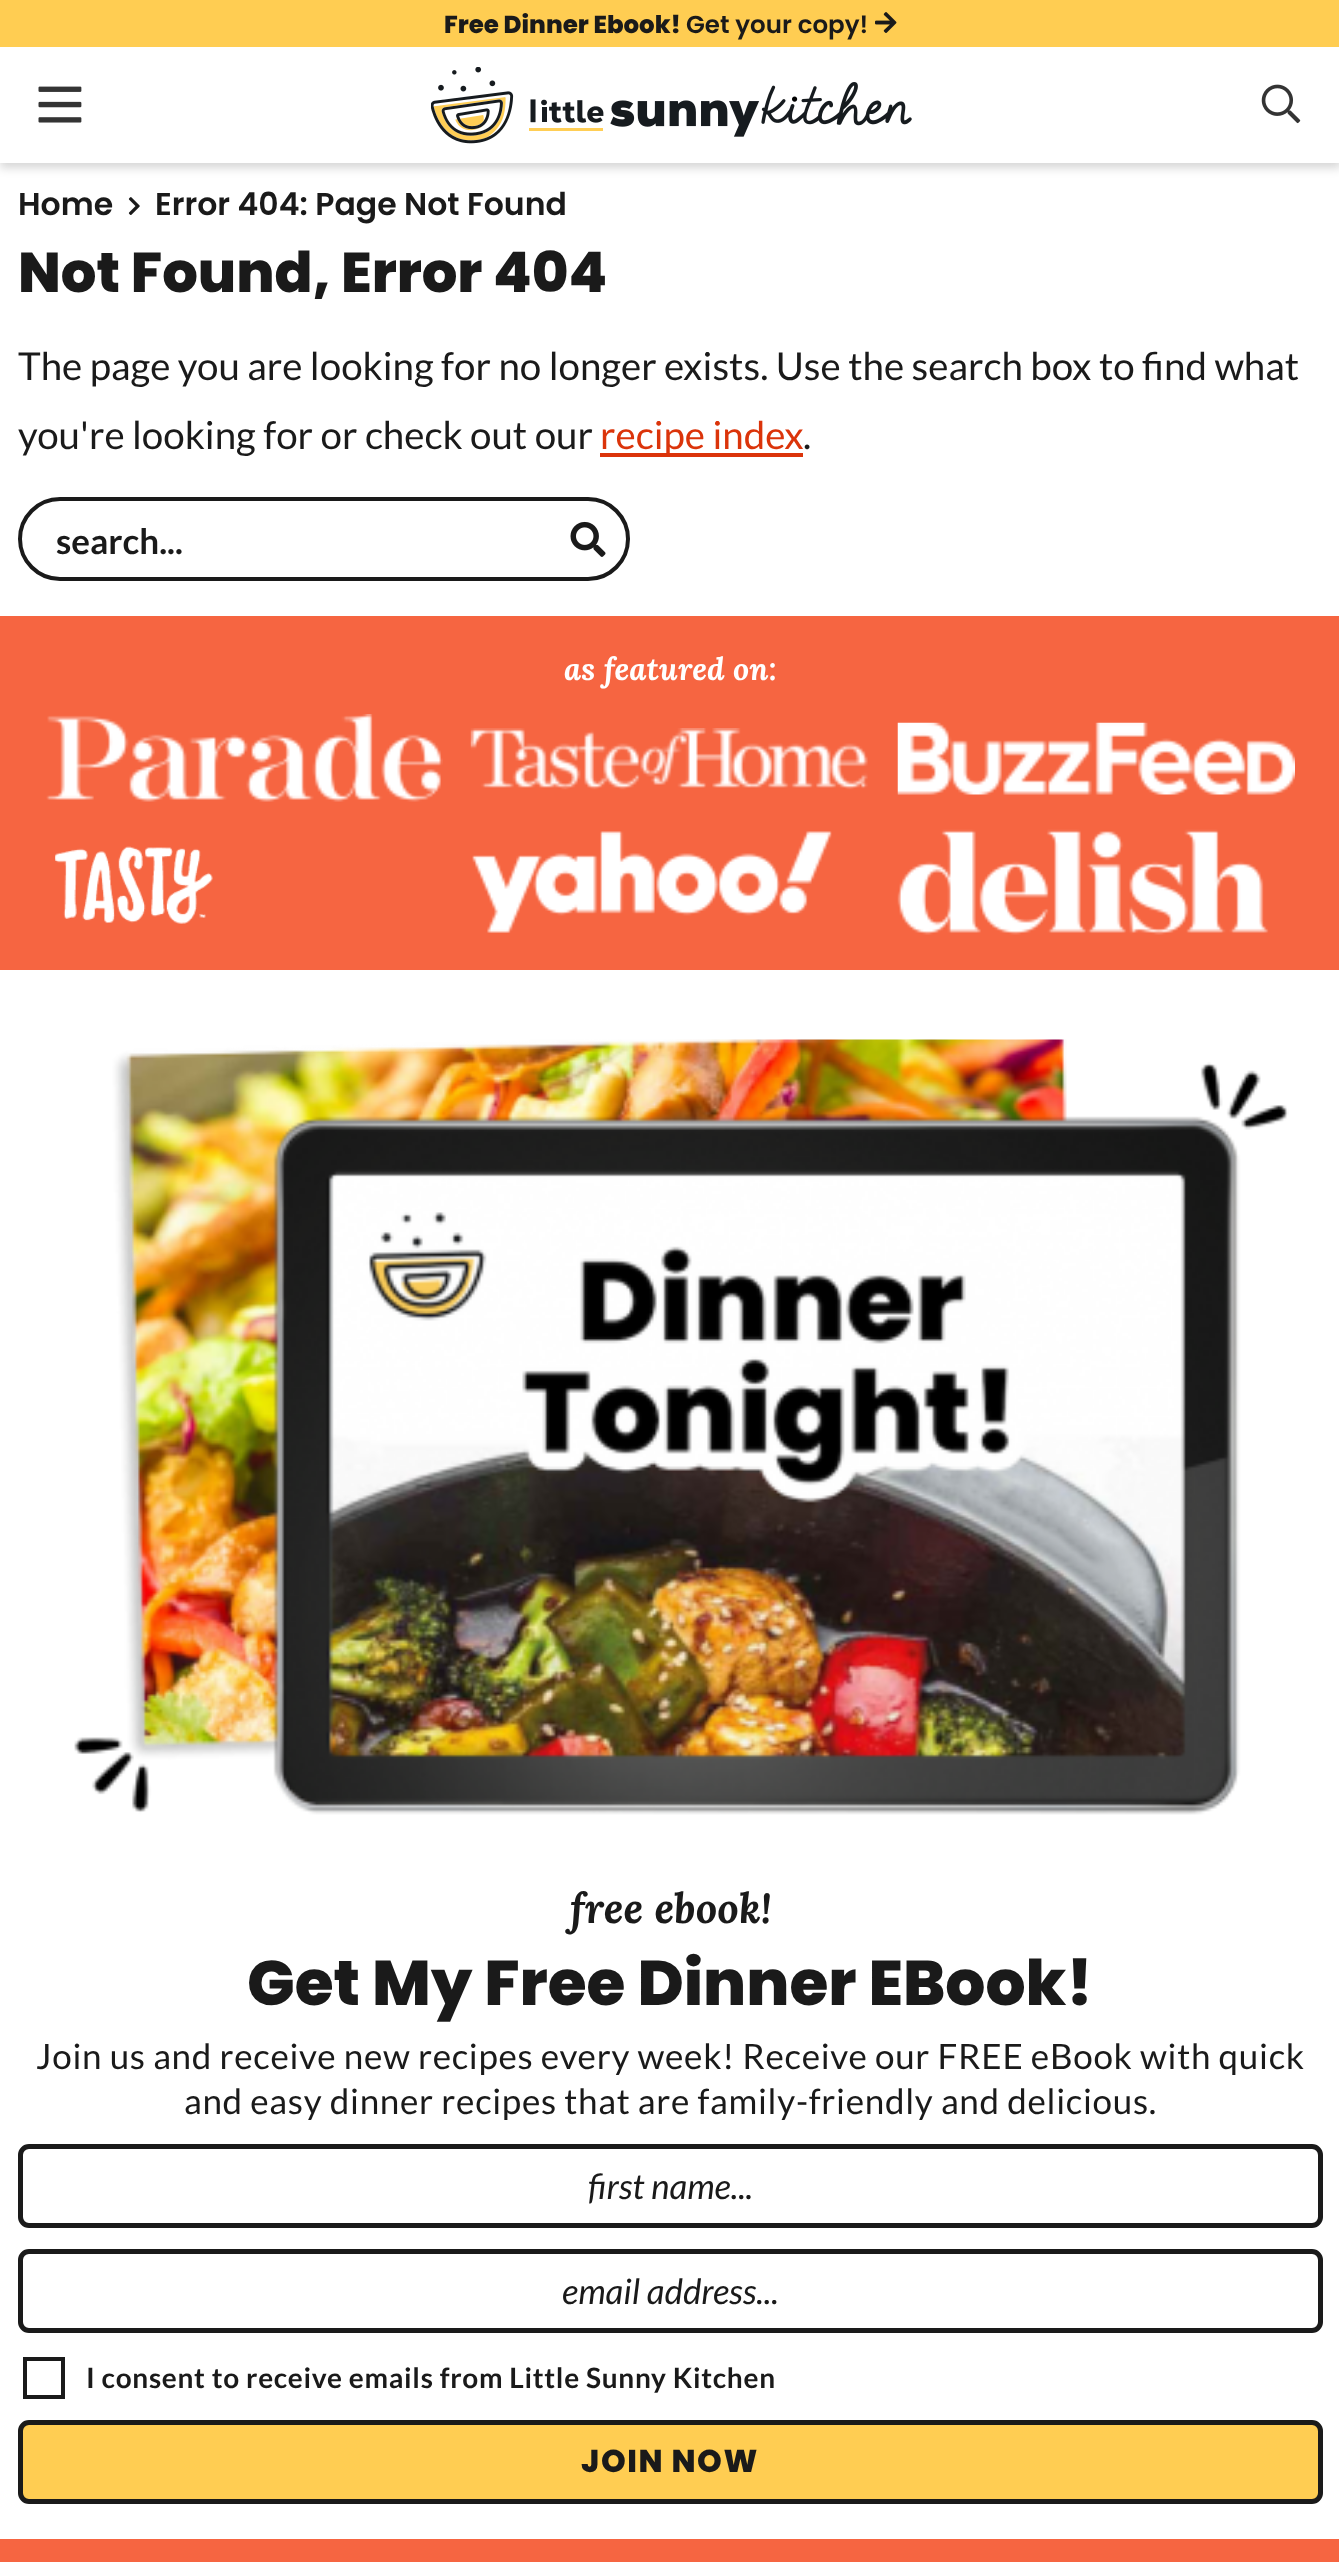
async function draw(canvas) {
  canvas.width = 1339;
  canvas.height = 2562;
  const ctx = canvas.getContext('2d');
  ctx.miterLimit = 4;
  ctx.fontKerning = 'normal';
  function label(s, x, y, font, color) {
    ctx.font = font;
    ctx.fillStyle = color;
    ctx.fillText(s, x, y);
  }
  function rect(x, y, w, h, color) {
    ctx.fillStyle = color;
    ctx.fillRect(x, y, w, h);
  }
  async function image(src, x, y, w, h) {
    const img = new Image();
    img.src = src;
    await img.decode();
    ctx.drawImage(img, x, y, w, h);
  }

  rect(0, 0, 1339, 2562, '#fff');
  ctx.fillStyle = '#00000029';
  ctx.filter = 'blur(5px)';
  ctx.beginPath();
  ctx.rect(0, 53, 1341, 115);
  ctx.fill();
  ctx.filter = 'none';
  rect(0, 0, 1339, 47, '#ffcd52');
  label('Free Dinner Ebook!', 444, 33, '800 24.5px Poppins', '#1a1a1a');
  label('Get your copy!', 686, 33, '600 24.5px Poppins', '#1a1a1a');
  await image('assets/img1.png', 875, 12, 22, 21);
  rect(0, 47, 1339, 116, '#fff');
  await image('assets/img2.png', 38, 86, 44, 37);
  await image('assets/img3.png', 431, 67, 481, 77);
  await image('assets/img4.png', 1261, 84, 40, 40);
  label('Home', 18, 215, '600 31.5px Poppins', '#1a1a1a');
  await image('assets/img5.png', 128, 197, 12, 18);
  label('Error 404: Page Not Found', 155, 215, '600 31.5px Poppins', '#1a1a1a');
  label('Not Found, Error 404', 18, 292, '800 56px Poppins', '#1a1a1a');
  label('The page you are looking for no longer exists. Use the search box to find what', 18, 380, '38.5px Lato', '#1a1a1a');
  label('you\'re looking for or check out our', 18, 449, '38.5px Lato', '#1a1a1a');
  rect(600, 453, 203, 4, '#db340a');
  label('recipe index', 600, 449, '38.5px Lato', '#db340a');
  label('.', 803, 449, '38.5px Lato', '#1a1a1a');
  ctx.beginPath();
  ctx.roundRect(20, 499, 608, 80, 40);
  ctx.strokeStyle = '#1a1a1a';
  ctx.lineWidth = 4;
  ctx.stroke();
  label('search...', 56, 554, 'bold 35px Lato', '#1a1a1a');
  await image('assets/img6.png', 570, 521, 36, 36);
  rect(0, 616, 1339, 354, '#f66541');
  label('as featured on:', 564, 680, 'italic bold 31.5px Lora', '#fff');
  await image('assets/img7.png', 46, 714, 397, 88);
  await image('assets/img8.png', 470, 728, 398, 62);
  await image('assets/img9.png', 897, 722, 398, 73);
  await image('assets/img10.png', 54, 846, 159, 78);
  await image('assets/img11.png', 472, 831, 360, 102);
  await image('assets/img12.png', 897, 829, 372, 106);
  await image('assets/img13.png', 74, 1039, 1215, 776);
  label('free ebook!', 570, 1923, 'italic bold 42px Lora', '#1a1a1a');
  label('Get My Free Dinner EBook!', 247, 2005, '800 63px Poppins', '#1a1a1a');
  ctx.letterSpacing = '0.7px';
  label('Join us and receive new recipes every week! Receive our FREE eBook with quick', 36, 2069, '35px Lato', '#1a1a1a');
  label('and easy dinner recipes that are family-friendly and delicious.', 184, 2114, '35px Lato', '#1a1a1a');
  ctx.beginPath();
  ctx.roundRect(20.5, 2146.5, 1300, 79, 8.5);
  ctx.lineWidth = 5;
  ctx.stroke();
  ctx.letterSpacing = '0px';
  label('first name...', 588, 2199, 'italic 35px Lato', '#1a1a1a');
  ctx.beginPath();
  ctx.roundRect(20.5, 2251.5, 1300, 79, 8.5);
  ctx.stroke();
  label('email address...', 562, 2304, 'italic 35px Lato', '#1a1a1a');
  ctx.lineWidth = 4;
  ctx.strokeRect(25, 2359, 38, 38);
  ctx.letterSpacing = '0.7px';
  label('I consent to receive emails from Little Sunny Kitchen', 86, 2388, 'bold 28px Lato', '#1a1a1a');
  ctx.fillStyle = '#ffcd52';
  ctx.beginPath();
  ctx.roundRect(20.5, 2422.5, 1300, 79, 8.5);
  ctx.fill();
  ctx.lineWidth = 5;
  ctx.stroke();
  ctx.letterSpacing = '1.5px';
  label('JOIN NOW', 581, 2472, '800 31.5px Poppins', '#1a1a1a');
  rect(0, 2539, 1339, 23, '#f66541');
}

draw(document.querySelector('canvas'));
